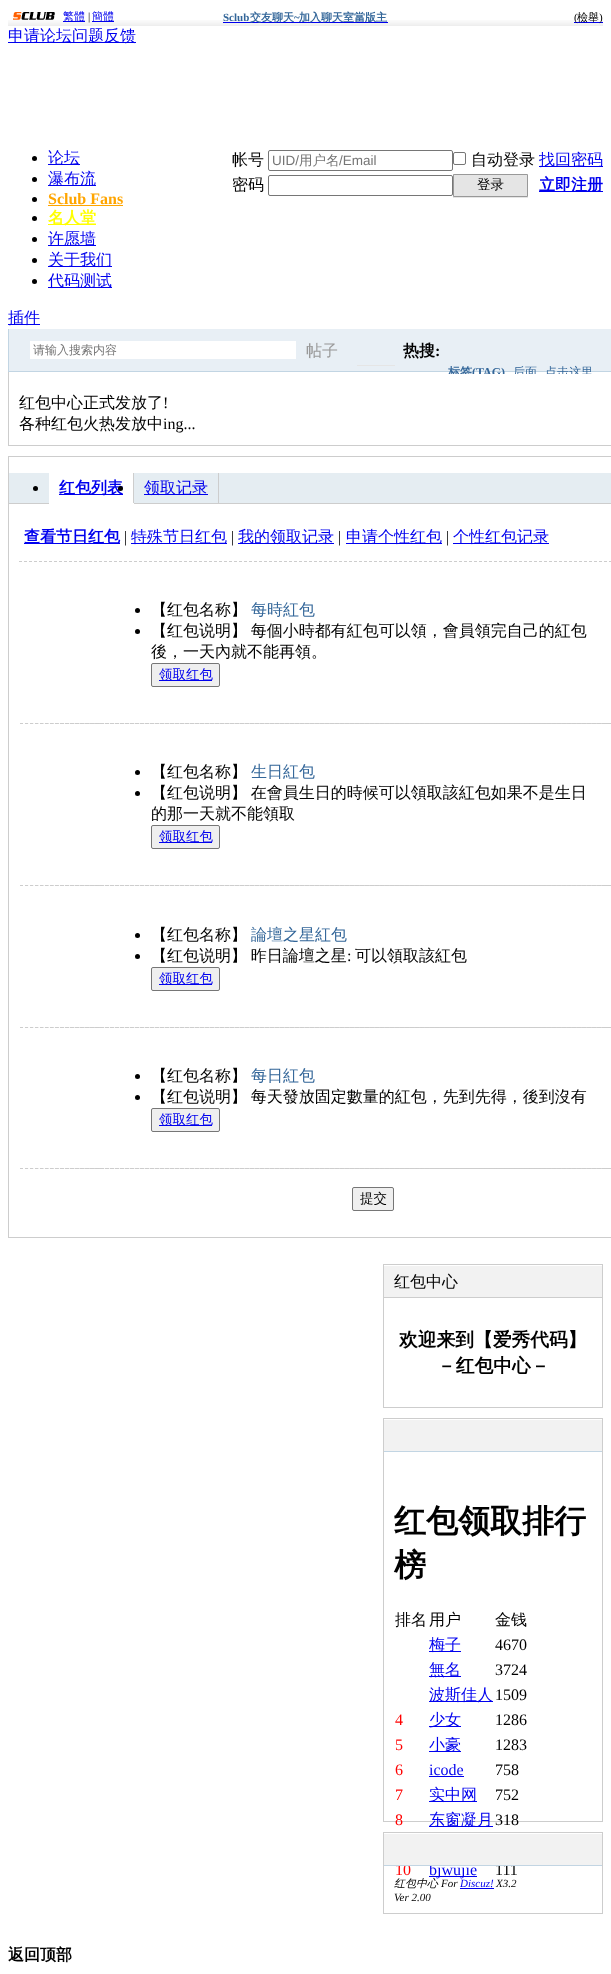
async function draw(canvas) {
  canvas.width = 611;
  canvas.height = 1974;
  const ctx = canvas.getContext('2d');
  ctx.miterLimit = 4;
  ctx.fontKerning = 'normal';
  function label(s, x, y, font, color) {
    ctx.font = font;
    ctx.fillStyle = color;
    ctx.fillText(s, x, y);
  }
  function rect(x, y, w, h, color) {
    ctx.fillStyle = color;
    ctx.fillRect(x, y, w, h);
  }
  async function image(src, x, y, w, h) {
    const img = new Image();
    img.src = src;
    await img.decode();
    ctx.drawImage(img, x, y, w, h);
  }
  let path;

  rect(0, 0, 611, 1974, '#fff');
  await image('assets/img1.png', 8, 20, 595, 6);
  await image('assets/img2.png', 13, 12, 42, 8);
  rect(63, 21, 22, 1, '#00e');
  label('繁體', 63, 20, '500 11px WenQuanYi Zen Hei', '#00e');
  label('|', 88, 20, '11px Liberation Serif', '#000');
  rect(92, 21, 22, 1, '#00e');
  label('簡體', 92, 20, '500 11px WenQuanYi Zen Hei', '#00e');
  label('Sclub', 223, 21, 'bold 11px Liberation Serif', '#369');
  rect(223, 22, 165, 1, '#00e');
  label('交友聊天', 250, 21, 'bold 11px WenQuanYi Zen Hei', '#369');
  label('~', 294, 21, 'bold 11px Liberation Serif', '#369');
  label('加入聊天室當版主', 299, 21, 'bold 11px WenQuanYi Zen Hei', '#369');
  rect(574, 22, 29, 1, '#00e');
  label('(', 574, 21, '11px Liberation Serif', '#000');
  label('檢舉', 577, 21, '500 11px WenQuanYi Zen Hei', '#000');
  label(')', 599, 21, '11px Liberation Serif', '#000');
  rect(8, 42, 128, 1, '#00e');
  label('申请论坛问题反馈', 8, 41, '500 16px WenQuanYi Zen Hei', '#00e');
  ctx.fillStyle = '#000';
  ctx.beginPath();
  ctx.arc(34.5, 158.5, 2.5, 0, 2 * Math.PI);
  ctx.fill();
  rect(48, 164, 32, 1, '#00e');
  label('论坛', 48, 163, '500 16px WenQuanYi Zen Hei', '#00e');
  ctx.fillStyle = '#000';
  ctx.beginPath();
  ctx.arc(34.5, 179.5, 2.5, 0, 2 * Math.PI);
  ctx.fill();
  rect(48, 185, 48, 1, '#00e');
  label('瀑布流', 48, 184, '500 16px WenQuanYi Zen Hei', '#00e');
  ctx.fillStyle = '#000';
  ctx.beginPath();
  ctx.arc(34.5, 199.5, 2.5, 0, 2 * Math.PI);
  ctx.fill();
  label('Sclub Fans', 48, 204, 'bold 16px Liberation Serif', '#ffa500');
  rect(48, 205, 75, 1, '#ffa500');
  ctx.fillStyle = '#000';
  ctx.beginPath();
  ctx.arc(34.5, 218.5, 2.5, 0, 2 * Math.PI);
  ctx.fill();
  rect(48, 224, 48, 1, '#ff0');
  label('名人堂', 48, 223, 'bold 16px WenQuanYi Zen Hei', '#ff0');
  ctx.fillStyle = '#000';
  ctx.beginPath();
  ctx.arc(34.5, 239.5, 2.5, 0, 2 * Math.PI);
  ctx.fill();
  rect(48, 245, 48, 1, '#00e');
  label('许愿墙', 48, 244, '500 16px WenQuanYi Zen Hei', '#00e');
  ctx.fillStyle = '#000';
  ctx.beginPath();
  ctx.arc(34.5, 260.5, 2.5, 0, 2 * Math.PI);
  ctx.fill();
  rect(48, 266, 64, 1, '#00e');
  label('关于我们', 48, 265, '500 16px WenQuanYi Zen Hei', '#00e');
  ctx.fillStyle = '#000';
  ctx.beginPath();
  ctx.arc(34.5, 281.5, 2.5, 0, 2 * Math.PI);
  ctx.fill();
  rect(48, 287, 64, 1, '#00e');
  label('代码测试', 48, 286, '500 16px WenQuanYi Zen Hei', '#00e');
  rect(8, 324, 32, 1, '#00e');
  label('插件', 8, 323, '500 16px WenQuanYi Zen Hei', '#00e');
  label('帐号', 232, 165, '500 16px WenQuanYi Zen Hei', '#000');
  ctx.beginPath();
  ctx.roundRect(268.5, 150.5, 184, 20, 1.5);
  ctx.strokeStyle = '#767676';
  ctx.stroke();
  label('UID/', 272, 165, '13.5px Liberation Sans', '#757575');
  label('用户名', 299, 165, '500 13.5px WenQuanYi Zen Hei', '#757575');
  label('/Email', 339, 165, '13.5px Liberation Sans', '#757575');
  ctx.beginPath();
  ctx.roundRect(453.5, 152.5, 12, 12, 1.5);
  ctx.stroke();
  label('自动登录', 471, 165, '500 16px WenQuanYi Zen Hei', '#000');
  rect(539, 166, 64, 1, '#00e');
  label('找回密码', 539, 165, '500 16px WenQuanYi Zen Hei', '#00e');
  label('密码', 232, 190, '500 16px WenQuanYi Zen Hei', '#000');
  ctx.beginPath();
  ctx.roundRect(268.5, 175.5, 184, 20, 1.5);
  ctx.stroke();
  rect(453, 197, 75, 1, '#e5e5e5');
  ctx.beginPath();
  ctx.rect(453.5, 174.5, 74, 22);
  ctx.fill();
  ctx.strokeStyle = '#999';
  ctx.stroke();
  label('登录', 477, 189, '500 13.5px WenQuanYi Zen Hei', '#000');
  rect(539, 191, 64, 1, '#00e');
  label('立即注册', 539, 190, 'bold 16px WenQuanYi Zen Hei', '#00e');
  ctx.strokeStyle = '#cdcdcd';
  ctx.strokeRect(8.5, 351.5, 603, 94);
  rect(9, 329, 602, 42, '#e8eff5');
  rect(8, 371, 603, 1, '#c2d5e3');
  rect(8, 329, 1, 43, '#c2d5e3');
  rect(30, 341, 266, 18, '#fff');
  label('请输入搜索内容', 33, 354, '500 12px WenQuanYi Zen Hei', '#757575');
  label('帖子', 306, 356, '500 16px WenQuanYi Zen Hei', '#999');
  label('热搜', 403, 356, 'bold 16px WenQuanYi Zen Hei', '#000');
  label(':', 435, 356, 'bold 16px Liberation Serif', '#000');
  ctx.save();
  ctx.beginPath();
  ctx.rect(395, 329, 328, 45);
  ctx.clip();
  label('标签', 448, 376, 'bold 12px WenQuanYi Zen Hei', '#369');
  label('(TAG)', 472, 376, 'bold 12px Liberation Serif', '#369');
  label('后面', 513, 376, '500 12px WenQuanYi Zen Hei', '#369');
  label('点击这里', 545, 376, '500 12px WenQuanYi Zen Hei', '#369');
  ctx.restore();
  rect(357, 365, 38, 1, '#e5e5e5');
  label('红包中心正式发放了', 19, 408, '500 16px WenQuanYi Zen Hei', '#000');
  label('!', 163, 408, '16px Liberation Serif', '#000');
  label('各种红包火热发放中', 19, 429, '500 16px WenQuanYi Zen Hei', '#000');
  label('ing...', 163, 429, '16px Liberation Serif', '#000');
  ctx.strokeRect(8.5, 456.5, 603, 781);
  rect(9, 473, 602, 30, '#e5edf2');
  rect(9, 503, 602, 1, '#cdcdcd');
  ctx.fillStyle = '#000';
  ctx.beginPath();
  ctx.arc(35.5, 488.5, 2.5, 0, 2 * Math.PI);
  ctx.fill();
  rect(49, 473, 84, 30, '#fff');
  rect(133, 473, 1, 31, '#cdcdcd');
  rect(49, 503, 85, 1, '#fff');
  rect(59, 494, 64, 1, '#00e');
  label('红包列表', 59, 493, 'bold 16px WenQuanYi Zen Hei', '#00e');
  ctx.fillStyle = '#000';
  ctx.beginPath();
  ctx.arc(120.5, 488.5, 2.5, 0, 2 * Math.PI);
  ctx.fill();
  rect(218, 473, 1, 31, '#cdcdcd');
  rect(144, 494, 64, 1, '#00e');
  label('领取记录', 144, 493, '500 16px WenQuanYi Zen Hei', '#00e');
  path = new Path2D('M19 561.5H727');
  ctx.setLineDash([3, 2]);
  ctx.stroke(path);
  rect(24, 543, 96, 1, '#00e');
  label('查看节日红包', 24, 542, 'bold 16px WenQuanYi Zen Hei', '#00e');
  label('|', 124, 542, '16px Liberation Serif', '#000');
  rect(131, 543, 96, 1, '#00e');
  label('特殊节日红包', 131, 542, '500 16px WenQuanYi Zen Hei', '#00e');
  label('|', 231, 542, '16px Liberation Serif', '#000');
  rect(238, 543, 96, 1, '#00e');
  label('我的领取记录', 238, 542, '500 16px WenQuanYi Zen Hei', '#00e');
  label('|', 338, 542, '16px Liberation Serif', '#000');
  rect(346, 543, 96, 1, '#00e');
  label('申请个性红包', 346, 542, '500 16px WenQuanYi Zen Hei', '#00e');
  label('|', 446, 542, '16px Liberation Serif', '#000');
  rect(453, 543, 96, 1, '#00e');
  label('个性红包记录', 453, 542, '500 16px WenQuanYi Zen Hei', '#00e');
  path = new Path2D('M20 723.5H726');
  ctx.setLineDash([3, 1.99]);
  ctx.stroke(path);
  path = new Path2D('M101 723.5H605');
  ctx.setLineDash([3, 2.01]);
  ctx.stroke(path);
  ctx.fillStyle = '#000';
  ctx.beginPath();
  ctx.arc(137.5, 610.5, 2.5, 0, 2 * Math.PI);
  ctx.fill();
  label('【红包名称】', 151, 615, '500 16px WenQuanYi Zen Hei', '#000');
  label('每時紅包', 251, 615, '500 16px WenQuanYi Zen Hei', '#369');
  ctx.fillStyle = '#000';
  ctx.beginPath();
  ctx.arc(137.5, 631.5, 2.5, 0, 2 * Math.PI);
  ctx.fill();
  ctx.wordSpacing = '-1px';
  label('【红包说明】 每個小時都有紅包可以領，會員領完自己的紅包', 151, 636, '500 16px WenQuanYi Zen Hei', '#000');
  ctx.wordSpacing = '0px';
  label('後，一天內就不能再領。', 151, 657, '500 16px WenQuanYi Zen Hei', '#000');
  ctx.fillStyle = '#efefef';
  ctx.beginPath();
  ctx.roundRect(151.5, 663.5, 68, 23, 1.5);
  ctx.fill();
  ctx.strokeStyle = '#767676';
  ctx.setLineDash([]);
  ctx.stroke();
  rect(159, 680, 53, 1, '#00e');
  label('领取红包', 159, 679, '500 13.5px WenQuanYi Zen Hei', '#00e');
  path = new Path2D('M20 723.5H100');
  ctx.strokeStyle = '#cdcdcd';
  ctx.setLineDash([3, 2.13]);
  ctx.stroke(path);
  path = new Path2D('M606 723.5H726');
  ctx.setLineDash([3, 2.09]);
  ctx.stroke(path);
  path = new Path2D('M20 885.5H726');
  ctx.setLineDash([3, 1.99]);
  ctx.stroke(path);
  path = new Path2D('M101 885.5H605');
  ctx.setLineDash([3, 2.01]);
  ctx.stroke(path);
  ctx.fillStyle = '#000';
  ctx.beginPath();
  ctx.arc(137.5, 772.5, 2.5, 0, 2 * Math.PI);
  ctx.fill();
  label('【红包名称】', 151, 777, '500 16px WenQuanYi Zen Hei', '#000');
  label('生日紅包', 251, 777, '500 16px WenQuanYi Zen Hei', '#369');
  ctx.fillStyle = '#000';
  ctx.beginPath();
  ctx.arc(137.5, 793.5, 2.5, 0, 2 * Math.PI);
  ctx.fill();
  ctx.wordSpacing = '-1px';
  label('【红包说明】 在會員生日的時候可以領取該紅包如果不是生日', 151, 798, '500 16px WenQuanYi Zen Hei', '#000');
  ctx.wordSpacing = '0px';
  label('的那一天就不能領取', 151, 819, '500 16px WenQuanYi Zen Hei', '#000');
  ctx.fillStyle = '#efefef';
  ctx.beginPath();
  ctx.roundRect(151.5, 825.5, 68, 23, 1.5);
  ctx.fill();
  ctx.strokeStyle = '#767676';
  ctx.setLineDash([]);
  ctx.stroke();
  rect(159, 842, 53, 1, '#00e');
  label('领取红包', 159, 841, '500 13.5px WenQuanYi Zen Hei', '#00e');
  path = new Path2D('M20 885.5H100');
  ctx.strokeStyle = '#cdcdcd';
  ctx.setLineDash([3, 2.13]);
  ctx.stroke(path);
  path = new Path2D('M606 885.5H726');
  ctx.setLineDash([3, 2.09]);
  ctx.stroke(path);
  path = new Path2D('M20 1027.5H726');
  ctx.setLineDash([3, 1.99]);
  ctx.stroke(path);
  path = new Path2D('M101 1027.5H605');
  ctx.setLineDash([3, 2.01]);
  ctx.stroke(path);
  ctx.fillStyle = '#000';
  ctx.beginPath();
  ctx.arc(137.5, 935.5, 2.5, 0, 2 * Math.PI);
  ctx.fill();
  label('【红包名称】', 151, 940, '500 16px WenQuanYi Zen Hei', '#000');
  label('論壇之星紅包', 251, 940, '500 16px WenQuanYi Zen Hei', '#369');
  ctx.fillStyle = '#000';
  ctx.beginPath();
  ctx.arc(137.5, 956.5, 2.5, 0, 2 * Math.PI);
  ctx.fill();
  ctx.wordSpacing = '-1px';
  label('【红包说明】 昨日論壇之星', 151, 961, '500 16px WenQuanYi Zen Hei', '#000');
  ctx.wordSpacing = '0px';
  label(':', 347, 961, '16px Liberation Serif', '#000');
  label('可以領取該紅包', 355, 961, '500 16px WenQuanYi Zen Hei', '#000');
  ctx.fillStyle = '#efefef';
  ctx.beginPath();
  ctx.roundRect(151.5, 967.5, 68, 23, 1.5);
  ctx.fill();
  ctx.strokeStyle = '#767676';
  ctx.setLineDash([]);
  ctx.stroke();
  rect(159, 984, 53, 1, '#00e');
  label('领取红包', 159, 983, '500 13.5px WenQuanYi Zen Hei', '#00e');
  path = new Path2D('M20 1027.5H100');
  ctx.strokeStyle = '#cdcdcd';
  ctx.setLineDash([3, 2.13]);
  ctx.stroke(path);
  path = new Path2D('M606 1027.5H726');
  ctx.setLineDash([3, 2.09]);
  ctx.stroke(path);
  path = new Path2D('M20 1168.5H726');
  ctx.setLineDash([3, 1.99]);
  ctx.stroke(path);
  path = new Path2D('M101 1168.5H605');
  ctx.setLineDash([3, 2.01]);
  ctx.stroke(path);
  ctx.fillStyle = '#000';
  ctx.beginPath();
  ctx.arc(137.5, 1076.5, 2.5, 0, 2 * Math.PI);
  ctx.fill();
  label('【红包名称】', 151, 1081, '500 16px WenQuanYi Zen Hei', '#000');
  label('每日紅包', 251, 1081, '500 16px WenQuanYi Zen Hei', '#369');
  ctx.fillStyle = '#000';
  ctx.beginPath();
  ctx.arc(137.5, 1097.5, 2.5, 0, 2 * Math.PI);
  ctx.fill();
  ctx.wordSpacing = '-1px';
  label('【红包说明】 每天發放固定數量的紅包，先到先得，後到沒有', 151, 1102, '500 16px WenQuanYi Zen Hei', '#000');
  ctx.fillStyle = '#efefef';
  ctx.beginPath();
  ctx.roundRect(151.5, 1108.5, 68, 23, 1.5);
  ctx.fill();
  ctx.strokeStyle = '#767676';
  ctx.setLineDash([]);
  ctx.stroke();
  rect(159, 1125, 53, 1, '#00e');
  ctx.wordSpacing = '0px';
  label('领取红包', 159, 1124, '500 13.5px WenQuanYi Zen Hei', '#00e');
  path = new Path2D('M20 1168.5H100');
  ctx.strokeStyle = '#cdcdcd';
  ctx.setLineDash([3, 2.13]);
  ctx.stroke(path);
  path = new Path2D('M606 1168.5H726');
  ctx.setLineDash([3, 2.09]);
  ctx.stroke(path);
  ctx.fillStyle = '#efefef';
  ctx.beginPath();
  ctx.roundRect(352.5, 1187.5, 41, 23, 1.5);
  ctx.fill();
  ctx.strokeStyle = '#767676';
  ctx.setLineDash([]);
  ctx.stroke();
  label('提交', 360, 1203, '500 13.5px WenQuanYi Zen Hei', '#000');
  ctx.strokeStyle = '#cdcdcd';
  ctx.strokeRect(383.5, 1264.5, 219, 143);
  rect(384, 1266, 218, 31, '#f2f2f2');
  rect(384, 1297, 218, 1, '#cdcdcd');
  label('红包中心', 394, 1287, '500 16px WenQuanYi Zen Hei', '#000');
  label('欢迎来到【爱秀代码】', 399, 1346, 'bold 18.75px WenQuanYi Zen Hei', '#000');
  label('－红包中心－', 437, 1372, 'bold 18.75px WenQuanYi Zen Hei', '#000');
  ctx.strokeRect(383.5, 1418.5, 219, 403);
  rect(384, 1420, 218, 31, '#f2f2f2');
  rect(384, 1451, 218, 1, '#c2d5e3');
  label('红包领取排行', 394, 1532, 'bold 32px WenQuanYi Zen Hei', '#000');
  label('榜', 394, 1576, 'bold 32px WenQuanYi Zen Hei', '#000');
  label('排名', 395, 1625, '500 16px WenQuanYi Zen Hei', '#000');
  label('用户', 429, 1625, '500 16px WenQuanYi Zen Hei', '#000');
  label('金钱', 495, 1625, '500 16px WenQuanYi Zen Hei', '#000');
  rect(429, 1651, 32, 1, '#00e');
  label('梅子', 429, 1650, '500 16px WenQuanYi Zen Hei', '#00e');
  label('4670', 495, 1650, '16px Liberation Serif', '#000');
  rect(429, 1676, 32, 1, '#00e');
  label('無名', 429, 1675, '500 16px WenQuanYi Zen Hei', '#00e');
  label('3724', 495, 1675, '16px Liberation Serif', '#000');
  rect(429, 1701, 64, 1, '#00e');
  label('波斯佳人', 429, 1700, '500 16px WenQuanYi Zen Hei', '#00e');
  label('1509', 495, 1700, '16px Liberation Serif', '#000');
  label('4', 395, 1725, '16px Liberation Serif', '#f00');
  rect(429, 1726, 32, 1, '#00e');
  label('少女', 429, 1725, '500 16px WenQuanYi Zen Hei', '#00e');
  label('1286', 495, 1725, '16px Liberation Serif', '#000');
  label('5', 395, 1750, '16px Liberation Serif', '#f00');
  rect(429, 1751, 32, 1, '#00e');
  label('小豪', 429, 1750, '500 16px WenQuanYi Zen Hei', '#00e');
  label('1283', 495, 1750, '16px Liberation Serif', '#000');
  label('6', 395, 1775, '16px Liberation Serif', '#f00');
  label('icode', 429, 1775, '16px Liberation Serif', '#00e');
  rect(429, 1776, 35, 1, '#00e');
  label('758', 495, 1775, '16px Liberation Serif', '#000');
  label('7', 395, 1800, '16px Liberation Serif', '#f00');
  rect(429, 1801, 48, 1, '#00e');
  label('实中网', 429, 1800, '500 16px WenQuanYi Zen Hei', '#00e');
  label('752', 495, 1800, '16px Liberation Serif', '#000');
  label('8', 395, 1825, '16px Liberation Serif', '#f00');
  rect(429, 1826, 64, 1, '#00e');
  label('东窗凝月', 429, 1825, '500 16px WenQuanYi Zen Hei', '#00e');
  label('318', 495, 1825, '16px Liberation Serif', '#000');
  ctx.strokeRect(383.5, 1832.5, 219, 81);
  label('10', 395, 1875, '16px Liberation Serif', '#f00');
  rect(429, 1876, 48, 1, '#00e');
  label('bjwujie', 429, 1875, '16px Liberation Serif', '#00e');
  label('111', 495, 1875, '16px Liberation Serif', '#000');
  rect(384, 1834, 218, 31, '#f2f2f2');
  rect(384, 1865, 218, 1, '#c2d5e3');
  label('红包中心', 394, 1887, 'italic 500 11px WenQuanYi Zen Hei', '#000');
  label('For', 441, 1887, 'italic 11px Liberation Serif', '#000');
  label('Discuz!', 460, 1887, 'italic 11px Liberation Serif', '#00e');
  rect(460, 1888, 34, 1, '#00e');
  label('X3.2', 496, 1887, 'italic 11px Liberation Serif', '#000');
  label('Ver 2.00', 394, 1901, 'italic 11px Liberation Serif', '#000');
  label('返回顶部', 8, 1960, 'bold 16px WenQuanYi Zen Hei', '#000');
}

draw(document.querySelector('canvas'));
